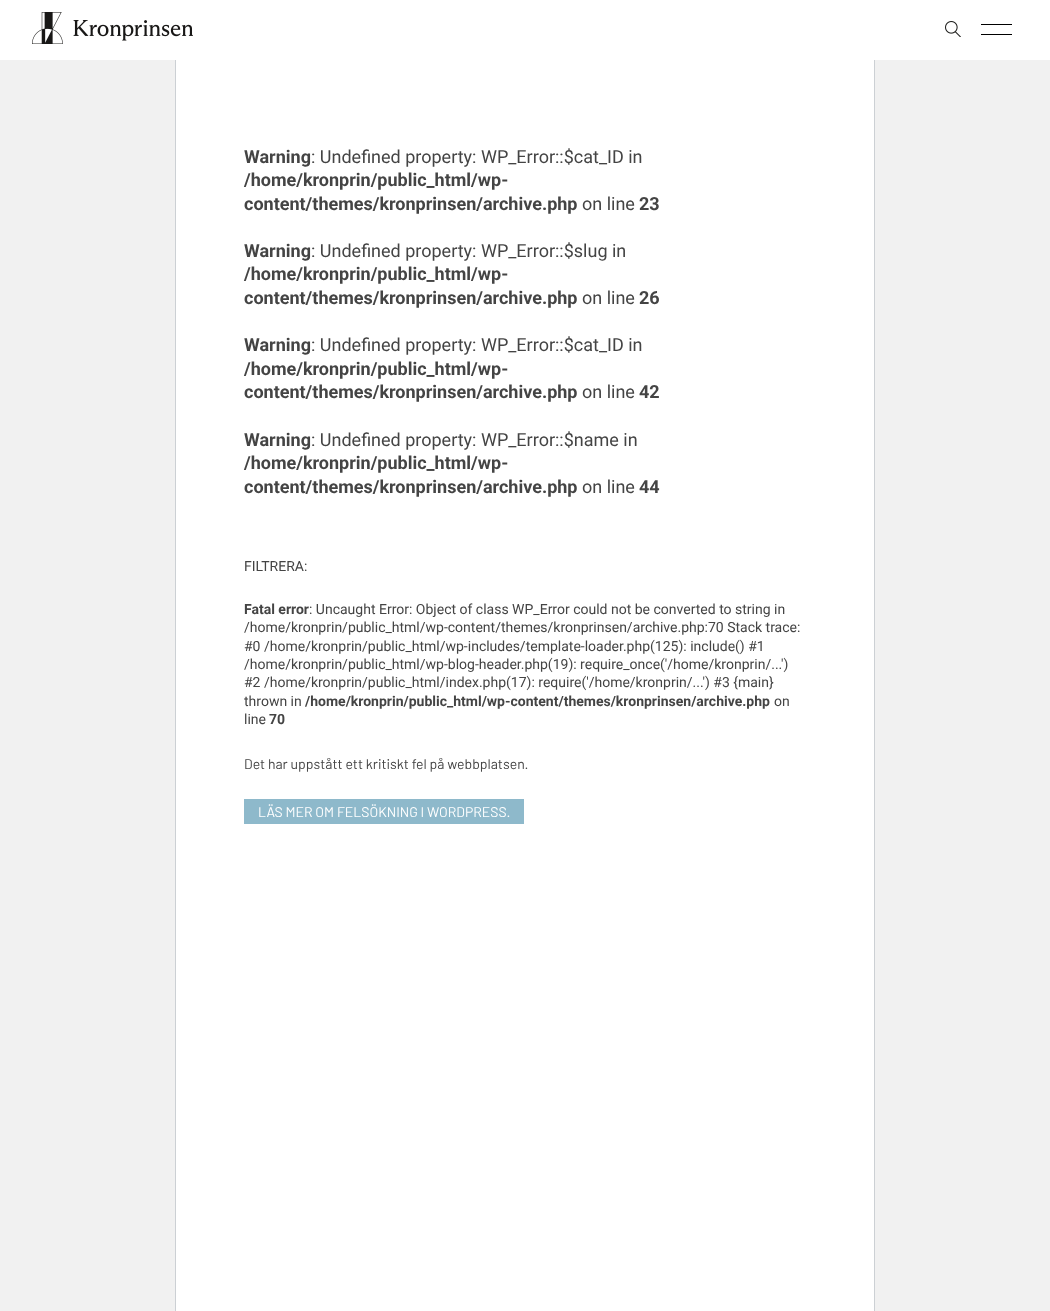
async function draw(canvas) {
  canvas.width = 1050;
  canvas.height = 1311;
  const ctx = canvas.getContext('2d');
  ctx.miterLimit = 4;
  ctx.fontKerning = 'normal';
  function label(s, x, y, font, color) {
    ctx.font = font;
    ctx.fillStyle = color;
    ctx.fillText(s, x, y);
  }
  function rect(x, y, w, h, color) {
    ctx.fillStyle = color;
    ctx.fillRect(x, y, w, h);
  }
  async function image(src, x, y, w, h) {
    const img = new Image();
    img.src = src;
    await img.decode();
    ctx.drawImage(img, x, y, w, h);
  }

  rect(0, 0, 1050, 1311, '#f1f1f1');
  rect(176, 60, 698, 1251, '#fff');
  ctx.strokeStyle = '#ccd0d4';
  ctx.strokeRect(175.5, 10.5, 699, 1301);
  rect(0, 0, 1050, 60, '#fff');
  await image('assets/img1.png', 32, 12, 161, 32);
  await image('assets/img2.png', 945, 21, 16, 16);
  rect(981, 24, 31, 1, '#000');
  rect(981, 34, 31, 1, '#000');
  label('Warning', 244, 163, 'bold 18px Roboto', '#444');
  label(': Undefined property: WP_Error::$cat_ID in', 311, 163, '18px Roboto', '#444');
  label('/home/kronprin/public_html/wp-', 244, 186, 'bold 18px Roboto', '#444');
  label('content/themes/kronprinsen/archive.php', 244, 210, 'bold 18px Roboto', '#444');
  label('on line', 582, 210, '18px Roboto', '#444');
  label('23', 639, 210, 'bold 18px Roboto', '#444');
  label('Warning', 244, 257, 'bold 18px Roboto', '#444');
  label(': Undefined property: WP_Error::$slug in', 311, 257, '18px Roboto', '#444');
  label('/home/kronprin/public_html/wp-', 244, 280, 'bold 18px Roboto', '#444');
  label('content/themes/kronprinsen/archive.php', 244, 304, 'bold 18px Roboto', '#444');
  label('on line', 582, 304, '18px Roboto', '#444');
  label('26', 639, 304, 'bold 18px Roboto', '#444');
  label('Warning', 244, 351, 'bold 18px Roboto', '#444');
  label(': Undefined property: WP_Error::$cat_ID in', 311, 351, '18px Roboto', '#444');
  label('/home/kronprin/public_html/wp-', 244, 375, 'bold 18px Roboto', '#444');
  label('content/themes/kronprinsen/archive.php', 244, 398, 'bold 18px Roboto', '#444');
  label('on line', 582, 398, '18px Roboto', '#444');
  label('42', 639, 398, 'bold 18px Roboto', '#444');
  label('Warning', 244, 446, 'bold 18px Roboto', '#444');
  label(': Undefined property: WP_Error::$name in', 311, 446, '18px Roboto', '#444');
  label('/home/kronprin/public_html/wp-', 244, 469, 'bold 18px Roboto', '#444');
  label('content/themes/kronprinsen/archive.php', 244, 493, 'bold 18px Roboto', '#444');
  label('on line', 582, 493, '18px Roboto', '#444');
  label('44', 639, 493, 'bold 18px Roboto', '#444');
  label('FILTRERA:', 244, 571, '14px Roboto', '#444');
  label('Fatal error', 244, 614, 'bold 14px Roboto', '#444');
  label(': Uncaught Error: Object of class WP_Error could not be converted to string in', 309, 614, '14px Roboto', '#444');
  label('/home/kronprin/public_html/wp-content/themes/kronprinsen/archive.php:70 Stack trace:', 244, 632, '14px Roboto', '#444');
  label('#0 /home/kronprin/public_html/wp-includes/template-loader.php(125): include() #1', 244, 651, '14px Roboto', '#444');
  label('/home/kronprin/public_html/wp-blog-header.php(19): require_once(\'/home/kronprin/...\')', 244, 669, '14px Roboto', '#444');
  label('#2 /home/kronprin/public_html/index.php(17): require(\'/home/kronprin/...\') #3 {main}', 244, 687, '14px Roboto', '#444');
  label('thrown in', 244, 706, '14px Roboto', '#444');
  label('/home/kronprin/public_html/wp-content/themes/kronprinsen/archive.php', 305, 706, 'bold 14px Roboto', '#444');
  label('on', 774, 706, '14px Roboto', '#444');
  label('line', 244, 724, '14px Roboto', '#444');
  label('70', 269, 724, 'bold 14px Roboto', '#444');
  label('Det har uppstått ett kritiskt fel på webbplatsen.', 244, 769, '14px Barlow', '#444');
  rect(244, 799, 280, 25, '#8eb9cb');
  label('LÄS MER OM FELSÖKNING I WORDPRESS.', 258, 817, '14px Barlow', '#fff');
}

draw(document.querySelector('canvas'));
